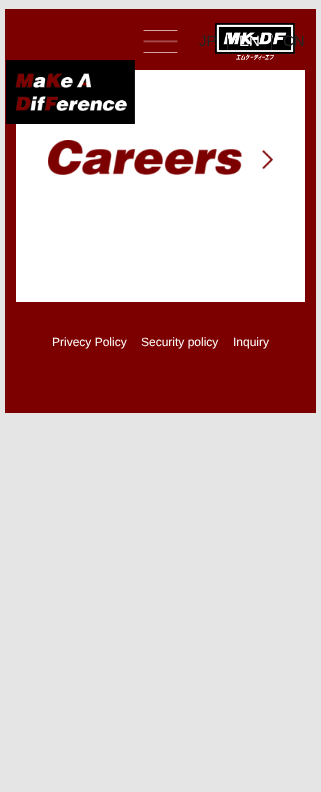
async function draw(canvas) {
  canvas.width = 321;
  canvas.height = 792;
  const ctx = canvas.getContext('2d');
  ctx.miterLimit = 4;
  ctx.fontKerning = 'normal';
  function label(s, x, y, font, color) {
    ctx.font = font;
    ctx.fillStyle = color;
    ctx.fillText(s, x, y);
  }
  function rect(x, y, w, h, color) {
    ctx.fillStyle = color;
    ctx.fillRect(x, y, w, h);
  }
  async function image(src, x, y, w, h) {
    const img = new Image();
    img.src = src;
    await img.decode();
    ctx.drawImage(img, x, y, w, h);
  }

  rect(0, 0, 321, 792, '#e5e5e5');
  rect(16, 20, 289, 50, '#7d0000');
  rect(16, 302, 289, 100, '#7d0000');
  ctx.strokeStyle = '#7d0000';
  ctx.lineWidth = 11;
  ctx.strokeRect(10.5, 14.5, 300, 393);
  await image('assets/img1.png', 143, 30, 35, 23);
  await image('assets/img2.png', 215, 23, 80, 37);
  rect(16, 70, 289, 232, '#fff');
  await image('assets/img3.png', 6, 60, 129, 64);
  label('JP', 199, 46, '15px Liberation Sans', '#252525');
  label('｜', 220, 46, '500 15px WenQuanYi Zen Hei', '#252525');
  label('EN', 239, 46, '15px Liberation Sans', '#fff');
  label('｜', 264, 46, '500 15px WenQuanYi Zen Hei', '#252525');
  label('CN', 283, 46, '15px Liberation Sans', '#252525');
  await image('assets/img4.png', 48, 140, 225, 35);
  label('Privecy Policy', 52, 346, '12px Liberation Sans', '#fff');
  label('Security policy', 141, 346, '12px Liberation Sans', '#fff');
  label('Inquiry', 233, 346, '12px Liberation Sans', '#fff');
}

draw(document.querySelector('canvas'));
